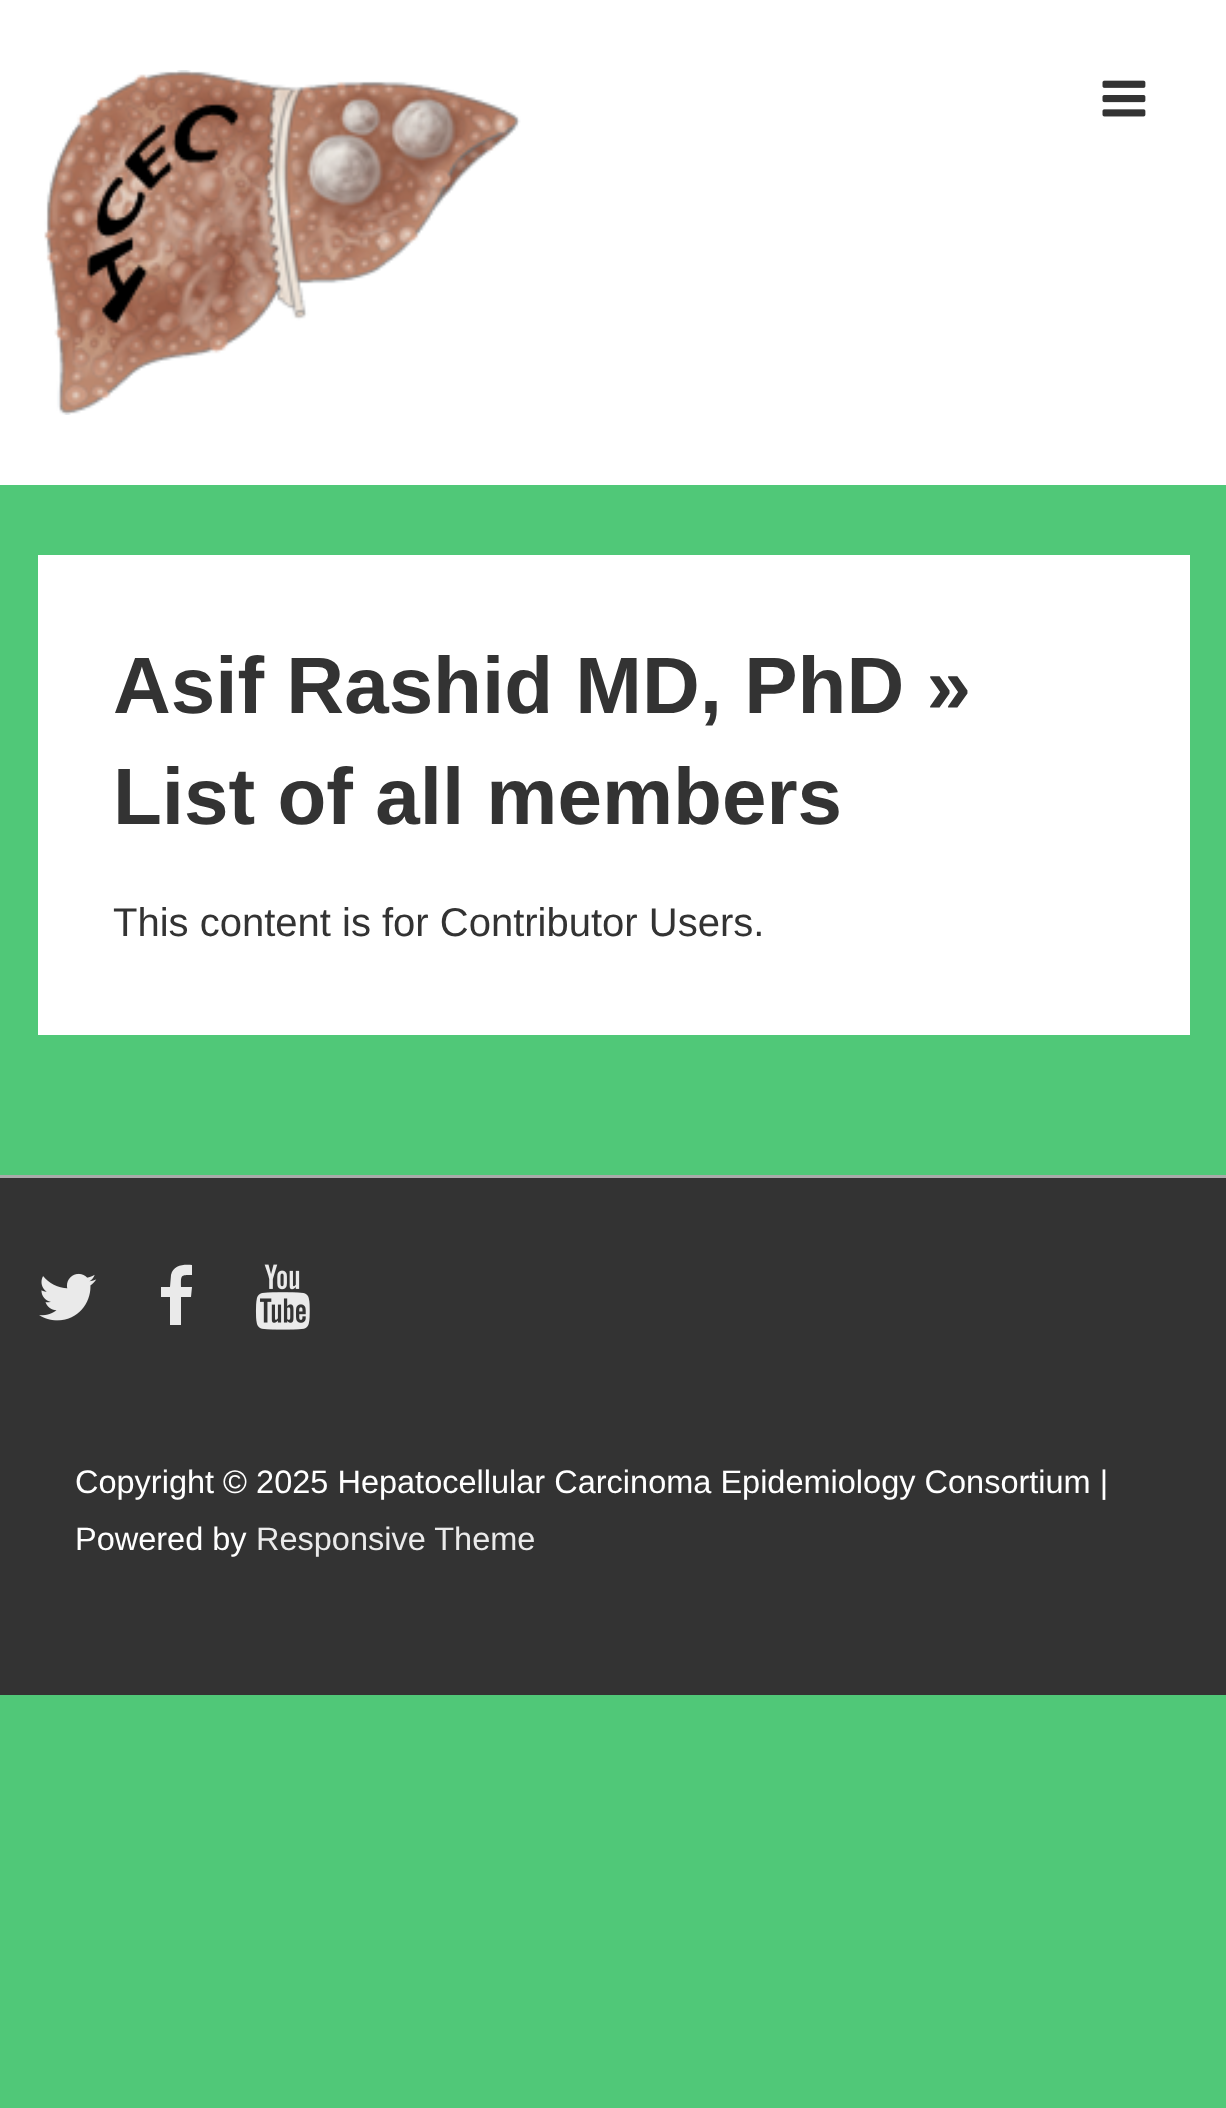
async function draw(canvas) {
  canvas.width = 1226;
  canvas.height = 2108;
  const ctx = canvas.getContext('2d');
  ctx.miterLimit = 4;
  ctx.fontKerning = 'normal';
  function label(s, x, y, font, color) {
    ctx.font = font;
    ctx.fillStyle = color;
    ctx.fillText(s, x, y);
  }
  function rect(x, y, w, h, color) {
    ctx.fillStyle = color;
    ctx.fillRect(x, y, w, h);
  }
  async function image(src, x, y, w, h) {
    const img = new Image();
    img.src = src;
    await img.decode();
    ctx.drawImage(img, x, y, w, h);
  }
  let path;

  rect(0, 0, 1226, 2108, '#50c878');
  rect(0, 0, 1226, 485, '#fff');
  await image('assets/img1.png', 44, 70, 477, 345);
  await image('assets/img2.png', 1102, 80, 44, 37);
  rect(38, 555, 1152, 480, '#fff');
  label('Asif Rashid MD, PhD »', 113, 713, 'bold 80px Liberation Sans', '#333');
  label('List of all members', 113, 824, 'bold 80px Liberation Sans', '#333');
  label('This content is for Contributor Users.', 113, 936, '40px Liberation Sans', '#333');
  rect(0, 1178, 1226, 517, '#333');
  rect(0, 1175, 1226, 3, '#aaa');
  await image('assets/img3.png', 39, 1273, 58, 48);
  ctx.fillStyle = '#eaeaea';
  path = new Path2D('M192 1265V1275C180 1275 181 1275 181 1287H192L191 1297H181V1325H170V1297H161V1287H170L171 1275C173 1265 184 1264 192 1265Z');
  ctx.fill(path);
  await image('assets/img4.png', 255, 1264, 55, 66);
  label('Copyright © 2025 Hepatocellular Carcinoma Epidemiology Consortium |', 75, 1493, '32.5px Liberation Sans', '#fff');
  label('Powered by', 75, 1550, '32.5px Liberation Sans', '#fff');
  label('Responsive Theme', 256, 1550, '32.5px Liberation Sans', '#eaeaea');
}

draw(document.querySelector('canvas'));
